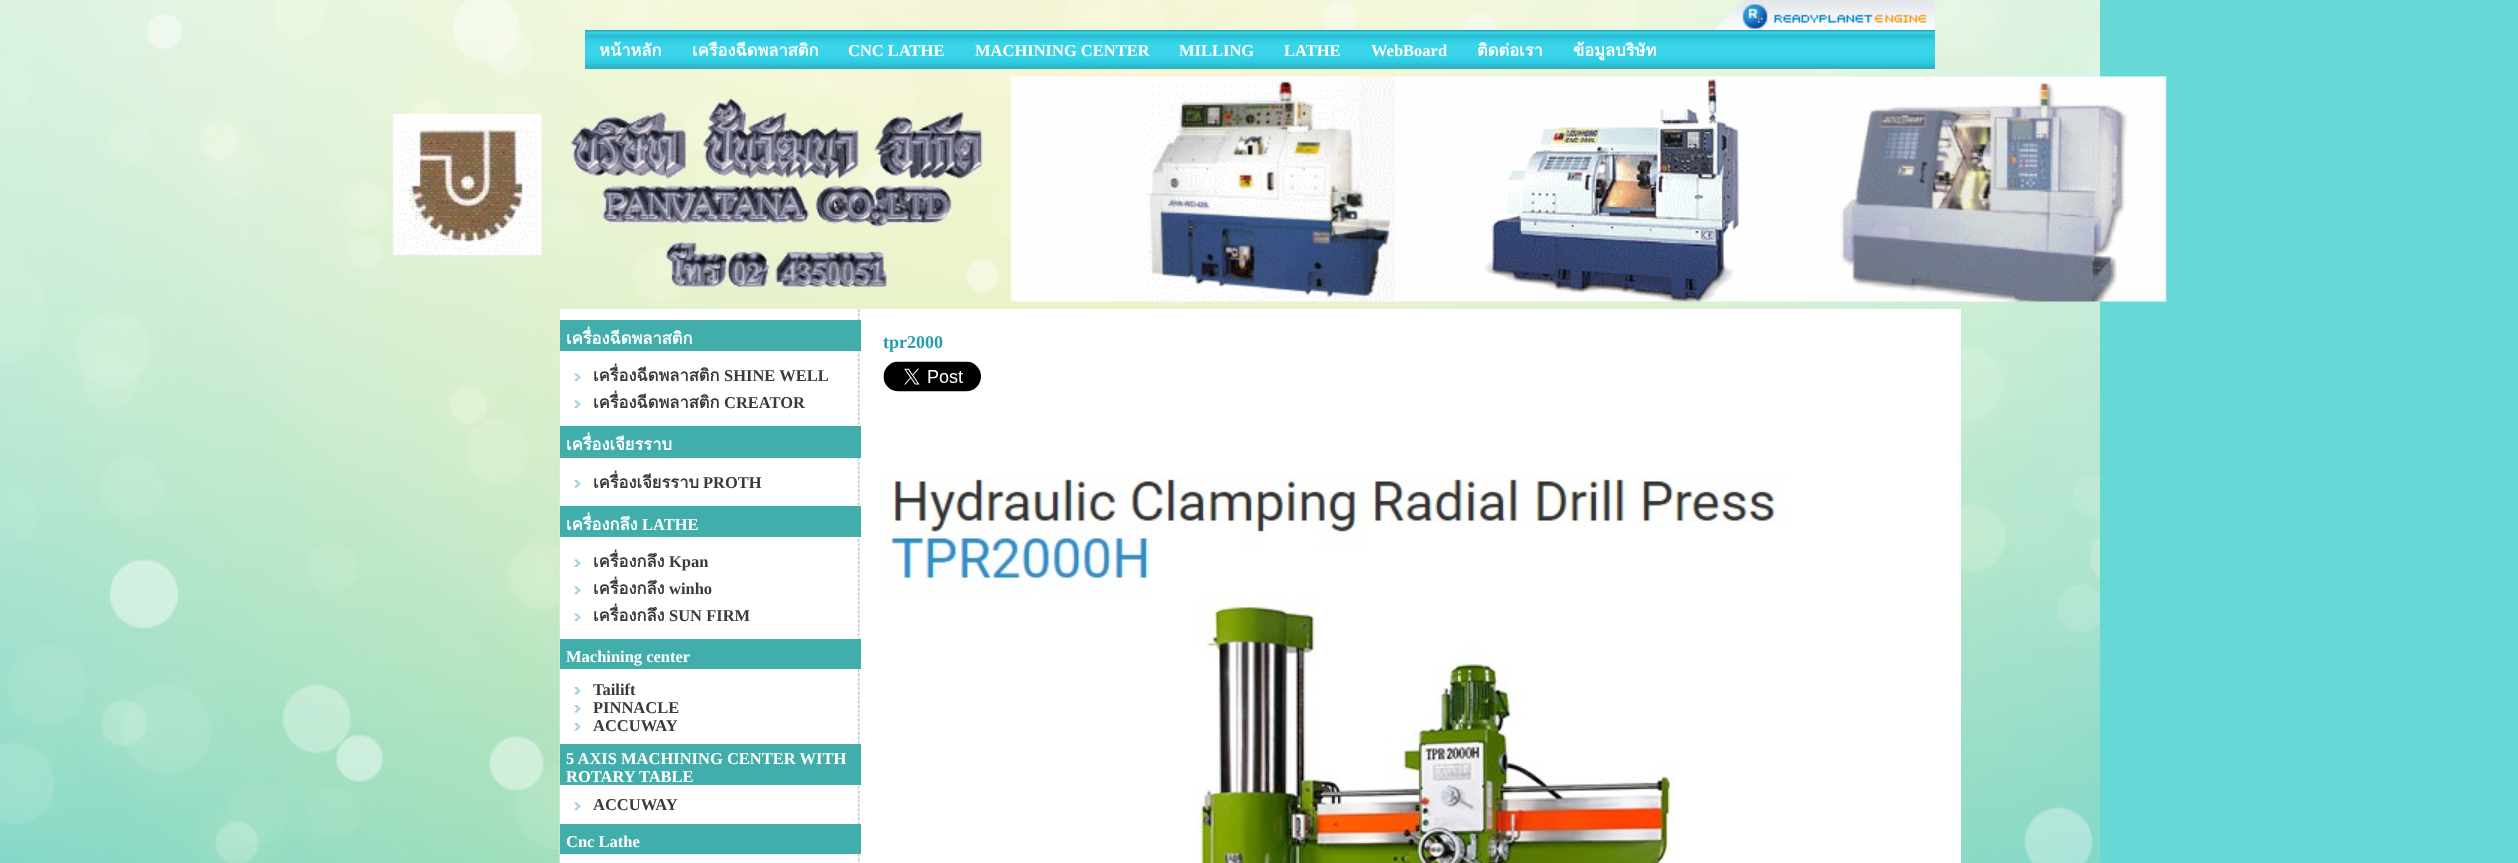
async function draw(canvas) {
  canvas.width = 2518;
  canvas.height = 863;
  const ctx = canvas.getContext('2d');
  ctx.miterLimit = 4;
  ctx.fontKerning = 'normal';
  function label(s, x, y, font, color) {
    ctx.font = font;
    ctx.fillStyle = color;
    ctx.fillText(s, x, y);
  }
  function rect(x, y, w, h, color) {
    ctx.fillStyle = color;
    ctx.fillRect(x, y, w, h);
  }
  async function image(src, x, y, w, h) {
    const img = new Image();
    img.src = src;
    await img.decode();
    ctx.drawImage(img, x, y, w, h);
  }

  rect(0, 0, 2518, 863, '#66d8d5');
  await image('assets/img1.png', 0, 0, 2100, 863);
  await image('assets/img2.png', 1714, 0, 221, 30);
  await image('assets/img3.png', 585, 30, 1350, 39);
  label('หน้าหลัก', 599, 56, 'bold 16.5px Loma', '#fff');
  label('เครืองฉีดพลาสติก', 692, 56, 'bold 16.5px Loma', '#fff');
  label('CNC LATHE', 848, 56, 'bold 16.5px Liberation Serif', '#fff');
  label('MACHINING CENTER', 975, 56, 'bold 16.5px Liberation Serif', '#fff');
  label('MILLING', 1179, 56, 'bold 16.5px Liberation Serif', '#fff');
  label('LATHE', 1284, 56, 'bold 16.5px Liberation Serif', '#fff');
  label('WebBoard', 1371, 56, 'bold 16.5px Liberation Serif', '#fff');
  label('ติดต่อเรา', 1477, 56, 'bold 16.5px Loma', '#fff');
  label('ข้อมูลบริษัท', 1573, 56, 'bold 16.5px Loma', '#fff');
  await image('assets/img4.png', 392, 76, 1775, 226);
  await image('assets/img5.png', 559, 309, 302, 554);
  rect(560, 320, 301, 31, '#42aeab');
  label('เครื่องฉีดพลาสติก', 566, 344, 'bold 16.5px Loma', '#fff');
  await image('assets/img6.png', 574, 373, 7, 8);
  label('เครื่องฉีดพลาสติก', 593, 381, 'bold 16.5px Loma', '#3a3a3a');
  label('SHINE WELL', 724, 381, 'bold 16.5px Liberation Serif', '#3a3a3a');
  await image('assets/img6.png', 574, 400, 7, 8);
  label('เครื่องฉีดพลาสติก', 593, 408, 'bold 16.5px Loma', '#3a3a3a');
  label('CREATOR', 724, 408, 'bold 16.5px Liberation Serif', '#3a3a3a');
  rect(560, 426, 301, 32, '#42aeab');
  label('เครื่องเจียรราบ', 566, 450, 'bold 16.5px Loma', '#fff');
  await image('assets/img7.png', 574, 480, 7, 8);
  label('เครื่องเจียรราบ', 593, 488, 'bold 16.5px Loma', '#3a3a3a');
  label('PROTH', 703, 488, 'bold 16.5px Liberation Serif', '#3a3a3a');
  rect(560, 506, 301, 31, '#42aeab');
  label('เครื่องกลึง', 566, 530, 'bold 16.5px Loma', '#fff');
  label('LATHE', 642, 530, 'bold 16.5px Liberation Serif', '#fff');
  await image('assets/img6.png', 574, 559, 7, 8);
  label('เครื่องกลึง', 593, 567, 'bold 16.5px Loma', '#3a3a3a');
  label('Kpan', 669, 567, 'bold 16.5px Liberation Serif', '#3a3a3a');
  await image('assets/img6.png', 574, 586, 7, 8);
  label('เครื่องกลึง', 593, 594, 'bold 16.5px Loma', '#3a3a3a');
  label('winho', 669, 594, 'bold 16.5px Liberation Serif', '#3a3a3a');
  await image('assets/img6.png', 574, 613, 7, 8);
  label('เครื่องกลึง', 593, 621, 'bold 16.5px Loma', '#3a3a3a');
  label('SUN FIRM', 669, 621, 'bold 16.5px Liberation Serif', '#3a3a3a');
  rect(560, 639, 301, 30, '#42aeab');
  label('Machining center', 566, 662, 'bold 16.5px Liberation Serif', '#fff');
  await image('assets/img7.png', 574, 687, 7, 8);
  label('Tailift', 593, 695, 'bold 16.5px Liberation Serif', '#3a3a3a');
  await image('assets/img7.png', 574, 705, 7, 8);
  label('PINNACLE', 593, 713, 'bold 16.5px Liberation Serif', '#3a3a3a');
  await image('assets/img7.png', 574, 723, 7, 8);
  label('ACCUWAY', 593, 731, 'bold 16.5px Liberation Serif', '#3a3a3a');
  rect(560, 744, 301, 41, '#42aeab');
  label('5 AXIS MACHINING CENTER WITH', 566, 764, 'bold 16.5px Liberation Serif', '#fff');
  label('ROTARY TABLE', 566, 782, 'bold 16.5px Liberation Serif', '#fff');
  await image('assets/img6.png', 574, 802, 7, 8);
  label('ACCUWAY', 593, 810, 'bold 16.5px Liberation Serif', '#3a3a3a');
  rect(560, 824, 301, 30, '#42aeab');
  label('Cnc Lathe', 566, 847, 'bold 16.5px Liberation Serif', '#fff');
  rect(861, 309, 1100, 554, '#fff');
  label('tpr2000', 883, 348, 'bold 18px Liberation Serif', '#279fa7');
  await image('assets/img8.png', 883, 361, 98, 31);
  await image('assets/img9.png', 883, 475, 903, 388);
}

draw(document.querySelector('canvas'));
